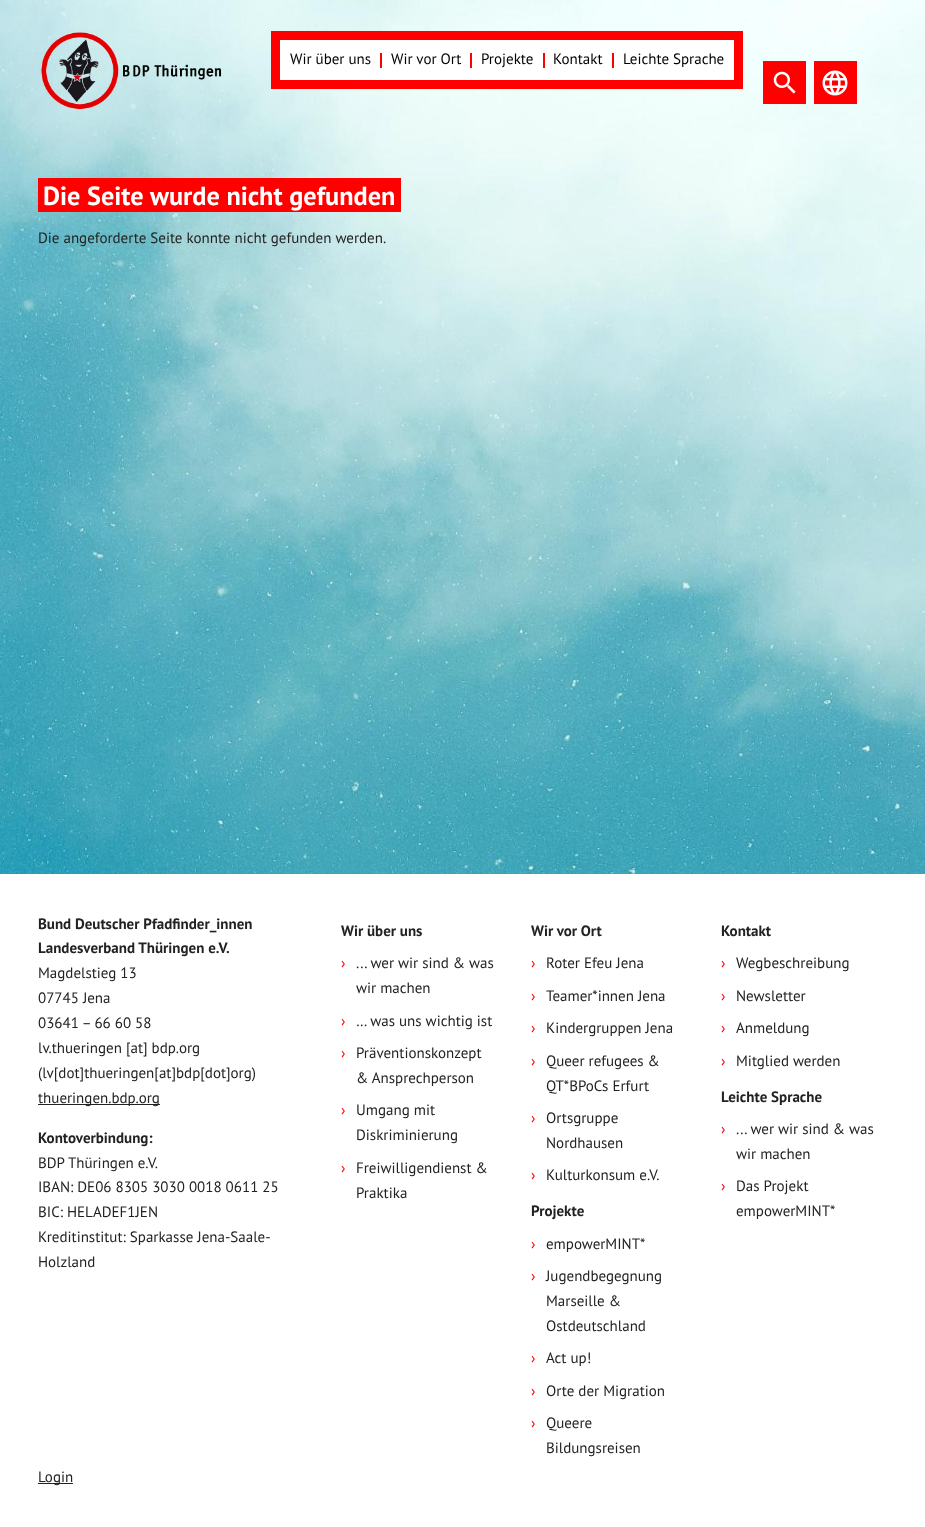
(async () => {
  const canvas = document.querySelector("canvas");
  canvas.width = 925;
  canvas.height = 1527;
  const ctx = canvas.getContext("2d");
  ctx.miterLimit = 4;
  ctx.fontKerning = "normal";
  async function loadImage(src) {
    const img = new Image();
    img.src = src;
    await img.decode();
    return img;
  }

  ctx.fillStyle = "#ffffff";
  ctx.fillRect(0, 0, 925, 1527);
  ctx.drawImage(await loadImage("img/1.png"), 0, 0, 925, 874);
  ctx.drawImage(await loadImage("img/2.png"), 41, 32, 181, 77);
  ctx.beginPath();
  ctx.rect(275.5, 35.5, 463, 49);
  ctx.fill();
  ctx.strokeStyle = "#ff0000";
  ctx.lineWidth = 9;
  ctx.stroke();
  for (const [x, y, w, h, color] of [
    [380, 53, 2, 15, "#ff0000"],
    [470, 53, 2, 15, "#ff0000"],
    [543, 53, 2, 15, "#ff0000"],
    [612, 53, 2, 15, "#ff0000"],
    [763, 61, 43, 43, "#ff0000"],
  ]) {
    ctx.fillStyle = color;
    ctx.fillRect(x, y, w, h);
  }
  ctx.drawImage(await loadImage("img/3.png"), 773, 71, 23, 23);
  ctx.fillRect(814, 61, 43, 43);
  ctx.drawImage(await loadImage("img/4.png"), 822, 70, 26, 26);
  for (const [x, y, w, h, color] of [
    [38, 178, 5, 34, "#ff0000"],
    [43, 178, 358, 34, "#ff0000"],
    [38, 1104, 122, 1, "#222222"],
    [38, 1483, 35, 1, "#222222"],
  ]) {
    ctx.fillStyle = color;
    ctx.fillRect(x, y, w, h);
  }
  ctx.font = "15px PT Sans";
  ctx.fillStyle = "#000000";
  for (const [text, x, y] of [
    ["Wir über uns", 290, 64],
    ["Wir vor Ort", 391, 64],
    ["Projekte", 481, 64],
    ["Kontakt", 553, 64],
    ["Leichte Sprache", 623, 64],
  ]) {
    ctx.fillText(text, x, y);
  }
  ctx.font = "bold 26.25px PT Sans";
  ctx.fillStyle = "#ffffff";
  ctx.fillText("Die Seite wurde nicht gefunden", 43, 205);
  ctx.font = "15px PT Sans";
  ctx.fillStyle = "#222222";
  ctx.fillText("Die angeforderte Seite konnte nicht gefunden werden.", 38, 243);
  ctx.font = "bold 15px PT Sans";
  ctx.fillText("Bund Deutscher Pfadfinder_innen", 38, 929);
  ctx.fillText("Landesverband Thüringen e.V.", 38, 953);
  ctx.font = "15px PT Sans";
  for (const [text, x, y] of [
    ["Magdelstieg 13", 38, 978],
    ["07745 Jena", 38, 1003],
    ["03641 – 66 60 58", 38, 1028],
    ["lv.thueringen [at] bdp.org", 38, 1053],
    ["(lv[dot]thueringen[at]bdp[dot]org)", 38, 1078],
    ["thueringen.bdp.org", 38, 1103],
  ]) {
    ctx.fillText(text, x, y);
  }
  ctx.font = "bold 15px PT Sans";
  ctx.fillText("Kontoverbindung:", 38, 1143);
  ctx.font = "15px PT Sans";
  for (const [text, x, y] of [
    ["BDP Thüringen e.V.", 38, 1168],
    ["IBAN: DE06 8305 3030 0018 0611 25", 38, 1192],
    ["BIC: HELADEF1JEN", 38, 1217],
    ["Kreditinstitut: Sparkasse Jena-Saale-", 38, 1242],
    ["Holzland", 38, 1267],
  ]) {
    ctx.fillText(text, x, y);
  }
  ctx.font = "bold 15px PT Sans";
  ctx.fillText("Wir über uns", 341, 936);
  ctx.font = "15px PT Sans";
  ctx.fillStyle = "#ff0000";
  ctx.fillText("›", 341, 968);
  ctx.fillStyle = "#222222";
  ctx.fillText("... wer wir sind & was", 356, 968);
  ctx.fillText("wir machen", 356, 993);
  ctx.fillStyle = "#ff0000";
  ctx.fillText("›", 341, 1026);
  ctx.fillStyle = "#222222";
  ctx.fillText("… was uns wichtig ist", 356, 1026);
  ctx.fillStyle = "#ff0000";
  ctx.fillText("›", 341, 1058);
  ctx.fillStyle = "#222222";
  ctx.fillText("Präventionskonzept", 356, 1058);
  ctx.fillText("& Ansprechperson", 356, 1083);
  ctx.fillStyle = "#ff0000";
  ctx.fillText("›", 341, 1115);
  ctx.fillStyle = "#222222";
  ctx.fillText("Umgang mit", 356, 1115);
  ctx.fillText("Diskriminierung", 356, 1140);
  ctx.fillStyle = "#ff0000";
  ctx.fillText("›", 341, 1173);
  ctx.fillStyle = "#222222";
  ctx.fillText("Freiwilligendienst &", 356, 1173);
  ctx.fillText("Praktika", 356, 1198);
  ctx.font = "bold 15px PT Sans";
  ctx.fillText("Wir vor Ort", 531, 936);
  ctx.font = "15px PT Sans";
  ctx.fillStyle = "#ff0000";
  ctx.fillText("›", 531, 968);
  ctx.fillStyle = "#222222";
  ctx.fillText("Roter Efeu Jena", 546, 968);
  ctx.fillStyle = "#ff0000";
  ctx.fillText("›", 531, 1001);
  ctx.fillStyle = "#222222";
  ctx.fillText("Teamer*innen Jena", 546, 1001);
  ctx.fillStyle = "#ff0000";
  ctx.fillText("›", 531, 1033);
  ctx.fillStyle = "#222222";
  ctx.fillText("Kindergruppen Jena", 546, 1033);
  ctx.fillStyle = "#ff0000";
  ctx.fillText("›", 531, 1066);
  ctx.fillStyle = "#222222";
  ctx.fillText("Queer refugees &", 546, 1066);
  ctx.fillText("QT*BPoCs Erfurt", 546, 1091);
  ctx.fillStyle = "#ff0000";
  ctx.fillText("›", 531, 1123);
  ctx.fillStyle = "#222222";
  ctx.fillText("Ortsgruppe", 546, 1123);
  ctx.fillText("Nordhausen", 546, 1148);
  ctx.fillStyle = "#ff0000";
  ctx.fillText("›", 531, 1180);
  ctx.fillStyle = "#222222";
  ctx.fillText("Kulturkonsum e.V.", 546, 1180);
  ctx.font = "bold 15px PT Sans";
  ctx.fillText("Kontakt", 721, 936);
  ctx.font = "15px PT Sans";
  ctx.fillStyle = "#ff0000";
  ctx.fillText("›", 721, 968);
  ctx.fillStyle = "#222222";
  ctx.fillText("Wegbeschreibung", 736, 968);
  ctx.fillStyle = "#ff0000";
  ctx.fillText("›", 721, 1001);
  ctx.fillStyle = "#222222";
  ctx.fillText("Newsletter", 736, 1001);
  ctx.fillStyle = "#ff0000";
  ctx.fillText("›", 721, 1033);
  ctx.fillStyle = "#222222";
  ctx.fillText("Anmeldung", 736, 1033);
  ctx.fillStyle = "#ff0000";
  ctx.fillText("›", 721, 1066);
  ctx.fillStyle = "#222222";
  ctx.fillText("Mitglied werden", 736, 1066);
  ctx.font = "bold 15px PT Sans";
  ctx.fillText("Leichte Sprache", 721, 1102);
  ctx.font = "15px PT Sans";
  ctx.fillStyle = "#ff0000";
  ctx.fillText("›", 721, 1134);
  ctx.fillStyle = "#222222";
  ctx.fillText("... wer wir sind & was", 736, 1134);
  ctx.fillText("wir machen", 736, 1159);
  ctx.fillStyle = "#ff0000";
  ctx.fillText("›", 721, 1191);
  ctx.fillStyle = "#222222";
  ctx.fillText("Das Projekt", 736, 1191);
  ctx.fillText("empowerMINT*", 736, 1216);
  ctx.font = "bold 15px PT Sans";
  ctx.fillText("Projekte", 531, 1216);
  ctx.font = "15px PT Sans";
  ctx.fillStyle = "#ff0000";
  ctx.fillText("›", 531, 1249);
  ctx.fillStyle = "#222222";
  ctx.fillText("empowerMINT*", 546, 1249);
  ctx.fillStyle = "#ff0000";
  ctx.fillText("›", 531, 1281);
  ctx.fillStyle = "#222222";
  for (const [text, x, y] of [
    ["Jugendbegegnung", 546, 1281],
    ["Marseille &", 546, 1306],
    ["Ostdeutschland", 546, 1331],
  ]) {
    ctx.fillText(text, x, y);
  }
  ctx.fillStyle = "#ff0000";
  ctx.fillText("›", 531, 1363);
  ctx.fillStyle = "#222222";
  ctx.fillText("Act up!", 546, 1363);
  ctx.fillStyle = "#ff0000";
  ctx.fillText("›", 531, 1396);
  ctx.fillStyle = "#222222";
  ctx.fillText("Orte der Migration", 546, 1396);
  ctx.fillStyle = "#ff0000";
  ctx.fillText("›", 531, 1428);
  ctx.fillStyle = "#222222";
  for (const [text, x, y] of [
    ["Queere", 546, 1428],
    ["Bildungsreisen", 546, 1453],
    ["Login", 38, 1482],
  ]) {
    ctx.fillText(text, x, y);
  }
})();
